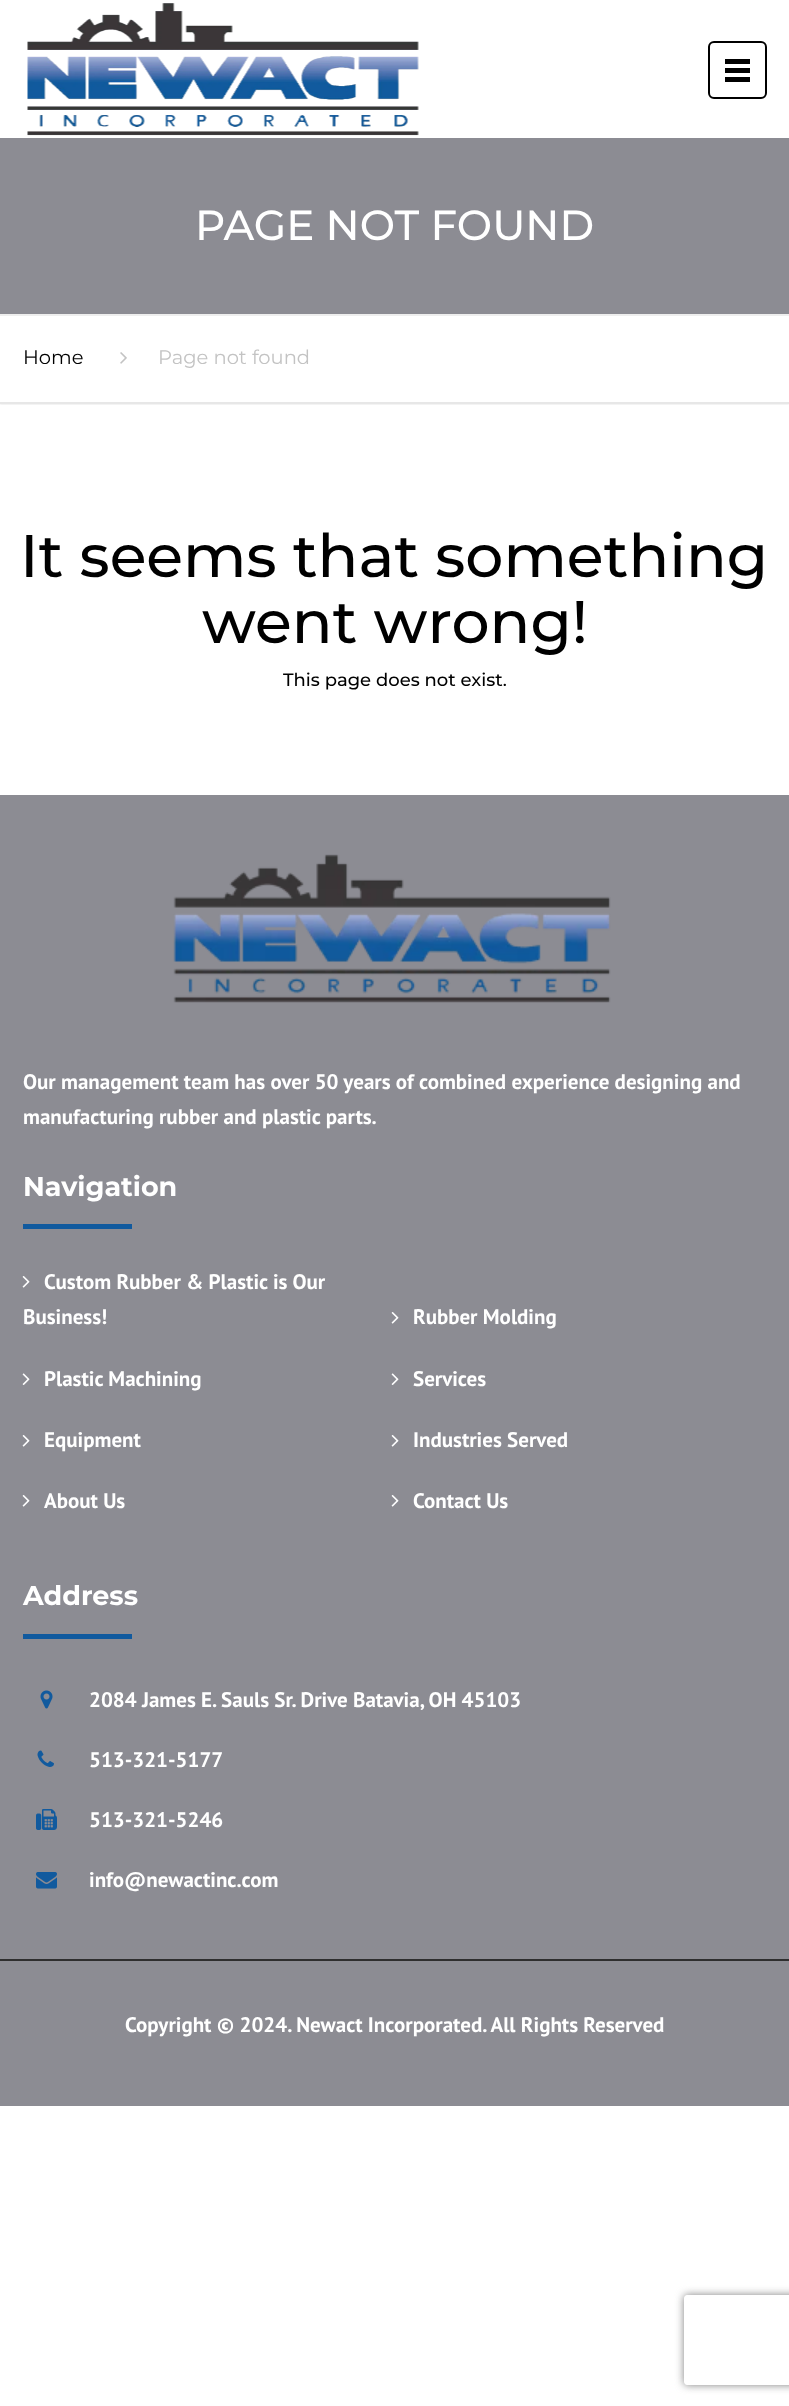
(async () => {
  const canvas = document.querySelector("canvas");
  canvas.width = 789;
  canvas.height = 2406;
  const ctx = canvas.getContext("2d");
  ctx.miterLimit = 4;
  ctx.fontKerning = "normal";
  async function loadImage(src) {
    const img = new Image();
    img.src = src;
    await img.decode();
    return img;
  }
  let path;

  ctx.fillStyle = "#ffffff";
  ctx.fillRect(0, 0, 789, 2406);
  ctx.drawImage(await loadImage("img/1.png"), 27, 3, 392, 133);
  ctx.beginPath();
  ctx.roundRect(709, 42, 57, 56, 5);
  ctx.strokeStyle = "#000000";
  ctx.lineWidth = 2;
  ctx.stroke();
  for (const [x, y, w, h, color] of [
    [725, 59, 25, 5, "#000000"],
    [725, 68, 25, 5, "#000000"],
    [725, 77, 25, 5, "#000000"],
  ]) {
    ctx.fillStyle = color;
    ctx.fillRect(x, y, w, h);
  }
  ctx.save();
  ctx.beginPath();
  ctx.rect(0, 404, 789, 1);
  ctx.clip();
  ctx.fillStyle = "rgba(0, 0, 0, 0.14)";
  ctx.filter = "blur(1px)";
  ctx.beginPath();
  ctx.rect(0, 315, 789, 89);
  ctx.fill();
  ctx.filter = "none";
  ctx.restore();
  for (const [x, y, w, h, color] of [
    [0, 138, 789, 176, "#8c8c93"],
    [0, 314, 789, 2, "#eeeeee"],
    [0, 402, 789, 2, "#e7e7e7"],
  ]) {
    ctx.fillStyle = color;
    ctx.fillRect(x, y, w, h);
  }
  ctx.drawImage(await loadImage("img/2.png"), 120, 352, 7, 12);
  ctx.fillStyle = "#8c8c93";
  ctx.fillRect(0, 795, 789, 1311);
  ctx.drawImage(await loadImage("img/3.png"), 173, 854, 438, 149);
  ctx.fillStyle = "#115a9e";
  ctx.fillRect(23, 1224, 109, 5);
  ctx.drawImage(await loadImage("img/4.png"), 22, 1276, 8, 12);
  ctx.drawImage(await loadImage("img/4.png"), 391, 1312, 8, 12);
  ctx.drawImage(await loadImage("img/5.png"), 22, 1373, 8, 12);
  ctx.drawImage(await loadImage("img/5.png"), 391, 1373, 8, 12);
  ctx.drawImage(await loadImage("img/4.png"), 22, 1435, 8, 12);
  ctx.drawImage(await loadImage("img/4.png"), 391, 1435, 8, 12);
  ctx.drawImage(await loadImage("img/4.png"), 22, 1495, 8, 12);
  ctx.drawImage(await loadImage("img/4.png"), 391, 1495, 8, 12);
  ctx.fillRect(23, 1634, 109, 5);
  ctx.drawImage(await loadImage("img/6.png"), 40, 1690, 13, 19);
  ctx.drawImage(await loadImage("img/7.png"), 37, 1750, 17, 17);
  ctx.drawImage(await loadImage("img/8.png"), 36, 1809, 21, 21);
  ctx.drawImage(await loadImage("img/9.png"), 36, 1872, 21, 17);
  ctx.fillStyle = "#2e2e2e";
  ctx.fillRect(0, 1959, 789, 2);
  ctx.save();
  path = new Path2D("M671 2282H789V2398H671ZM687 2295H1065C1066.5 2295 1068 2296.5 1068 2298V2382C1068 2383.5 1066.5 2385 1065 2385H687C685.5 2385 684 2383.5 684 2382V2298C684 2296.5 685.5 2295 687 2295Z");
  ctx.clip(path, "evenodd");
  ctx.fillStyle = "#808080";
  ctx.filter = "blur(4px)";
  ctx.beginPath();
  ctx.roundRect(684, 2295, 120, 90, 3);
  ctx.fill();
  ctx.filter = "none";
  ctx.restore();
  ctx.font = "500 42px Montserrat";
  ctx.fillStyle = "#ffffff";
  ctx.fillText("PAGE NOT FOUND", 195, 240);
  ctx.font = "19.5px Montserrat";
  ctx.fillStyle = "#000000";
  ctx.fillText("Home", 23, 364);
  ctx.fillStyle = "#c3c3c3";
  ctx.fillText("Page not found", 158, 364);
  ctx.font = "500 60px Montserrat";
  ctx.fillStyle = "#000000";
  ctx.fillText("It seems that something", 20, 577);
  ctx.fillText("went wrong!", 202, 643);
  ctx.font = "500 18px Montserrat";
  ctx.fillText("This page does not exist.", 283, 686);
  ctx.font = "bold 21px PT Sans";
  ctx.fillStyle = "#ffffff";
  ctx.fillText("Our management team has over 50 years of combined experience designing and", 23, 1089);
  ctx.fillText("manufacturing rubber and plastic parts.", 23, 1124);
  ctx.font = "bold 27px Montserrat";
  ctx.fillText("Navigation", 23, 1196);
  ctx.font = "bold 21px PT Sans";
  for (const [text, x, y] of [
    ["Custom Rubber & Plastic is Our", 44, 1289],
    ["Business!", 23, 1324],
    ["Rubber Molding", 413, 1324],
    ["Plastic Machining", 44, 1386],
    ["Services", 413, 1386],
    ["Equipment", 44, 1447],
    ["Industries Served", 413, 1447],
    ["About Us", 44, 1508],
    ["Contact Us", 413, 1508],
  ]) {
    ctx.fillText(text, x, y);
  }
  ctx.font = "bold 27px Montserrat";
  ctx.fillText("Address", 23, 1605);
  ctx.font = "bold 21px PT Sans";
  for (const [text, x, y] of [
    ["2084 James E. Sauls Sr. Drive Batavia, OH 45103", 89, 1707],
    ["513-321-5177", 89, 1767],
    ["513-321-5246", 89, 1827],
    ["info@newactinc.com", 89, 1887],
    ["Copyright © 2024. Newact Incorporated. All Rights Reserved", 125, 2032],
  ]) {
    ctx.fillText(text, x, y);
  }
})();
